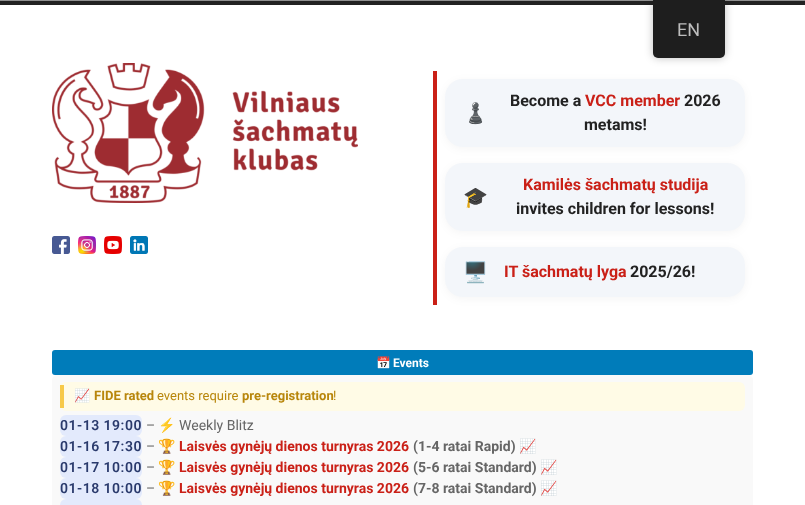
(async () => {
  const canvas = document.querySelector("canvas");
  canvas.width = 805;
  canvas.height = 505;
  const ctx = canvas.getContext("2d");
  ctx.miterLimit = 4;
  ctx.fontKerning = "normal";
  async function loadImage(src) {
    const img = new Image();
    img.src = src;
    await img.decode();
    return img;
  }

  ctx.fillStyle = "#ffffff";
  ctx.fillRect(0, 0, 805, 505);
  ctx.fillStyle = "#222222";
  ctx.fillRect(0, 1, 805, 4);
  ctx.fillStyle = "#919191";
  ctx.fillRect(0, 0, 805, 1);
  ctx.fillStyle = "rgba(0, 0, 0, 0.25)";
  ctx.filter = "blur(4px)";
  ctx.beginPath();
  ctx.roundRect(653, 0, 72, 58, 5);
  ctx.fill();
  ctx.filter = "none";
  ctx.fillStyle = "#1e1e1e";
  ctx.beginPath();
  ctx.roundRect(653, 0, 72, 58, [0, 0, 5, 5]);
  ctx.fill();
  ctx.drawImage(await loadImage("img/1.png"), 52, 63, 306, 140);
  ctx.drawImage(await loadImage("img/2.png"), 52, 236, 18, 18);
  ctx.drawImage(await loadImage("img/3.png"), 78, 236, 18, 18);
  ctx.drawImage(await loadImage("img/4.png"), 104, 236, 18, 18);
  ctx.drawImage(await loadImage("img/5.png"), 130, 236, 18, 18);
  ctx.fillStyle = "#ca2017";
  ctx.fillRect(433, 71, 4, 234);
  ctx.fillStyle = "rgba(0, 0, 0, 0.04)";
  ctx.filter = "blur(4px)";
  ctx.beginPath();
  ctx.roundRect(445, 81, 300, 68, 18);
  ctx.fill();
  ctx.filter = "none";
  ctx.fillStyle = "#f3f6fa";
  ctx.beginPath();
  ctx.roundRect(445, 79, 300, 68, 18);
  ctx.fill();
  ctx.fillStyle = "rgba(0, 0, 0, 0.04)";
  ctx.filter = "blur(4px)";
  ctx.beginPath();
  ctx.roundRect(445, 165, 300, 68, 18);
  ctx.fill();
  ctx.filter = "none";
  ctx.fillStyle = "#f3f6fa";
  ctx.beginPath();
  ctx.roundRect(445, 163, 300, 68, 18);
  ctx.fill();
  ctx.fillStyle = "rgba(0, 0, 0, 0.04)";
  ctx.filter = "blur(4px)";
  ctx.beginPath();
  ctx.roundRect(445, 249, 300, 50, 18);
  ctx.fill();
  ctx.filter = "none";
  ctx.fillStyle = "#f3f6fa";
  ctx.beginPath();
  ctx.roundRect(445, 247, 300, 50, 18);
  ctx.fill();
  ctx.fillStyle = "#007cba";
  ctx.beginPath();
  ctx.roundRect(52, 350, 701, 25, 3);
  ctx.fill();
  ctx.fillStyle = "#f9f9f9";
  ctx.beginPath();
  ctx.roundRect(52, 375, 701, 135, 5);
  ctx.fill();
  ctx.fillStyle = "#fffbe6";
  ctx.beginPath();
  ctx.roundRect(60, 382, 685, 29, 6);
  ctx.fill();
  ctx.fillStyle = "#f7c948";
  ctx.fillRect(60, 385, 4, 23);
  ctx.fillStyle = "#e3eafc";
  ctx.beginPath();
  ctx.roundRect(60, 415, 82, 21, 6);
  ctx.fill();
  ctx.beginPath();
  ctx.roundRect(60, 436, 82, 21, 6);
  ctx.fill();
  ctx.beginPath();
  ctx.roundRect(60, 457, 82, 21, 6);
  ctx.fill();
  ctx.beginPath();
  ctx.roundRect(60, 478, 82, 21, 6);
  ctx.fill();
  ctx.beginPath();
  ctx.roundRect(60, 499, 82, 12, 6);
  ctx.fill();
  ctx.font = "18px Roboto";
  ctx.fillStyle = "#bdbdbd";
  ctx.fillText("EN", 677, 36);
  ctx.font = "20px Noto Color Emoji";
  ctx.fillStyle = "#222222";
  ctx.fillText("♟️", 463, 120);
  ctx.font = "bold 16px Roboto";
  ctx.fillText("Become a", 510, 106);
  ctx.fillStyle = "#ca2017";
  ctx.fillText("VCC member", 585, 106);
  ctx.fillStyle = "#222222";
  ctx.fillText("2026", 684, 106);
  ctx.fillText("metams!", 584, 130);
  ctx.font = "20px Noto Color Emoji";
  ctx.fillText("🎓", 463, 204);
  ctx.font = "bold 16px Roboto";
  ctx.fillStyle = "#ca2017";
  ctx.fillText("Kamilės šachmatų studija", 523, 190);
  ctx.fillStyle = "#222222";
  ctx.fillText("invites children for lessons!", 516, 214);
  ctx.font = "20px Noto Color Emoji";
  ctx.fillText("🖥️", 463, 279);
  ctx.font = "bold 16px Roboto";
  ctx.fillStyle = "#ca2017";
  ctx.fillText("IT šachmatų lyga", 504, 277);
  ctx.fillStyle = "#222222";
  ctx.fillText("2025/26!", 630, 277);
  ctx.font = "bold 12px Noto Color Emoji";
  ctx.fillStyle = "#ffffff";
  ctx.fillText("📅", 376, 367);
  ctx.font = "bold 12px Roboto";
  ctx.fillText("Events", 393, 367);
  ctx.font = "13px Noto Color Emoji";
  ctx.fillStyle = "#b8860b";
  ctx.fillText("📈", 74, 400);
  ctx.font = "bold 13px Roboto";
  ctx.fillText("FIDE rated", 94, 400);
  ctx.font = "13px Roboto";
  ctx.fillText("events require", 157, 400);
  ctx.font = "bold 13px Roboto";
  ctx.fillText("pre-registration", 242, 400);
  ctx.font = "13px Roboto";
  ctx.fillText("!", 333, 400);
  ctx.letterSpacing = "0.5px";
  ctx.font = "600 14px Roboto";
  ctx.fillStyle = "#2a3a6c";
  ctx.fillText("01-13 19:00", 60, 430);
  ctx.letterSpacing = "0px";
  ctx.font = "14px Roboto";
  ctx.fillStyle = "#666666";
  ctx.fillText("–", 146, 430);
  ctx.font = "14px Noto Color Emoji";
  ctx.fillText("⚡", 158, 430);
  ctx.font = "14px Roboto";
  ctx.fillText("Weekly Blitz", 179, 430);
  ctx.letterSpacing = "0.5px";
  ctx.font = "600 14px Roboto";
  ctx.fillStyle = "#2a3a6c";
  ctx.fillText("01-16 17:30", 60, 451);
  ctx.letterSpacing = "0px";
  ctx.font = "14px Roboto";
  ctx.fillStyle = "#666666";
  ctx.fillText("–", 146, 451);
  ctx.font = "14px Noto Color Emoji";
  ctx.fillText("🏆", 158, 451);
  ctx.font = "bold 14px Roboto";
  ctx.fillStyle = "#ca2017";
  ctx.fillText("Laisvės gynėjų dienos turnyras 2026", 179, 451);
  ctx.fillStyle = "#666666";
  ctx.fillText("(1-4 ratai Rapid)", 413, 451);
  ctx.font = "14px Noto Color Emoji";
  ctx.fillText("📈", 519, 451);
  ctx.letterSpacing = "0.5px";
  ctx.font = "600 14px Roboto";
  ctx.fillStyle = "#2a3a6c";
  ctx.fillText("01-17 10:00", 60, 472);
  ctx.letterSpacing = "0px";
  ctx.font = "14px Roboto";
  ctx.fillStyle = "#666666";
  ctx.fillText("–", 146, 472);
  ctx.font = "14px Noto Color Emoji";
  ctx.fillText("🏆", 158, 472);
  ctx.font = "bold 14px Roboto";
  ctx.fillStyle = "#ca2017";
  ctx.fillText("Laisvės gynėjų dienos turnyras 2026", 179, 472);
  ctx.fillStyle = "#666666";
  ctx.fillText("(5-6 ratai Standard)", 413, 472);
  ctx.font = "14px Noto Color Emoji";
  ctx.fillText("📈", 540, 472);
  ctx.letterSpacing = "0.5px";
  ctx.font = "600 14px Roboto";
  ctx.fillStyle = "#2a3a6c";
  ctx.fillText("01-18 10:00", 60, 493);
  ctx.letterSpacing = "0px";
  ctx.font = "14px Roboto";
  ctx.fillStyle = "#666666";
  ctx.fillText("–", 146, 493);
  ctx.font = "14px Noto Color Emoji";
  ctx.fillText("🏆", 158, 493);
  ctx.font = "bold 14px Roboto";
  ctx.fillStyle = "#ca2017";
  ctx.fillText("Laisvės gynėjų dienos turnyras 2026", 179, 493);
  ctx.fillStyle = "#666666";
  ctx.fillText("(7-8 ratai Standard)", 413, 493);
  ctx.font = "14px Noto Color Emoji";
  ctx.fillText("📈", 540, 493);
})();
